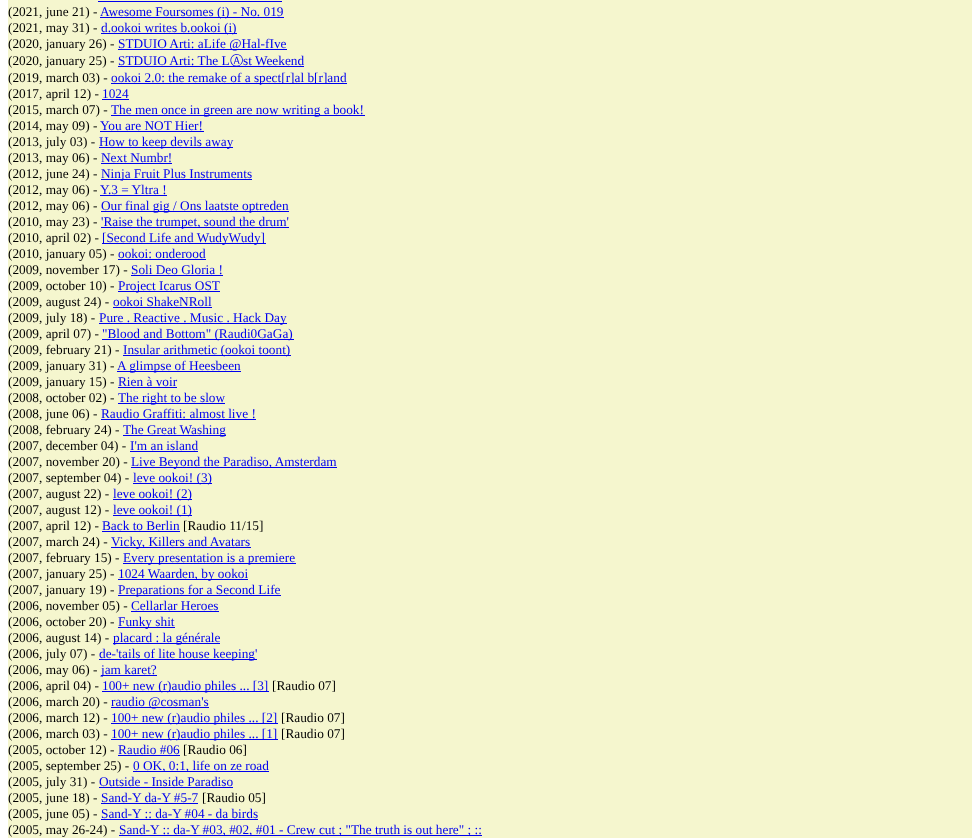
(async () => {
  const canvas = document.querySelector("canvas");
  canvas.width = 980;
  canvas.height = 838;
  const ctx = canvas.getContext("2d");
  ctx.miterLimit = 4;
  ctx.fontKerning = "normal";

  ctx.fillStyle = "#ffffff";
  ctx.fillRect(0, 0, 980, 838);
  for (const [x, y, w, h, color] of [
    [8, 0, 964, 838, "#f5f6ce"],
    [98, 1, 184, 1, "#0000ee"],
    [100, 17, 184, 1, "#0000ee"],
    [101, 33, 136, 1, "#0000ee"],
    [118, 49, 169, 1, "#0000ee"],
    [118, 66, 186, 1, "#0000ee"],
    [111, 83, 236, 1, "#0000ee"],
    [102, 99, 27, 1, "#0000ee"],
    [111, 115, 254, 1, "#0000ee"],
    [100, 131, 104, 1, "#0000ee"],
    [99, 147, 134, 1, "#0000ee"],
    [101, 163, 71, 1, "#0000ee"],
    [101, 179, 151, 1, "#0000ee"],
    [100, 195, 67, 1, "#0000ee"],
    [101, 211, 188, 1, "#0000ee"],
    [101, 227, 188, 1, "#0000ee"],
    [102, 243, 164, 1, "#0000ee"],
    [118, 259, 88, 1, "#0000ee"],
    [131, 275, 92, 1, "#0000ee"],
    [118, 291, 102, 1, "#0000ee"],
    [113, 307, 99, 1, "#0000ee"],
    [99, 323, 188, 1, "#0000ee"],
    [102, 339, 192, 1, "#0000ee"],
    [123, 355, 168, 1, "#0000ee"],
    [117, 371, 124, 1, "#0000ee"],
    [118, 387, 59, 1, "#0000ee"],
    [118, 403, 107, 1, "#0000ee"],
    [101, 419, 155, 1, "#0000ee"],
    [123, 435, 103, 1, "#0000ee"],
    [130, 451, 68, 1, "#0000ee"],
    [131, 467, 206, 1, "#0000ee"],
    [133, 483, 79, 1, "#0000ee"],
    [113, 499, 79, 1, "#0000ee"],
    [113, 515, 79, 1, "#0000ee"],
    [102, 531, 78, 1, "#0000ee"],
    [111, 547, 140, 1, "#0000ee"],
    [123, 563, 173, 1, "#0000ee"],
    [118, 579, 130, 1, "#0000ee"],
    [118, 595, 163, 1, "#0000ee"],
    [131, 611, 88, 1, "#0000ee"],
    [118, 627, 57, 1, "#0000ee"],
    [113, 643, 107, 1, "#0000ee"],
    [99, 659, 158, 1, "#0000ee"],
    [101, 675, 56, 1, "#0000ee"],
    [102, 691, 167, 1, "#0000ee"],
    [111, 707, 98, 1, "#0000ee"],
    [111, 723, 167, 1, "#0000ee"],
    [111, 739, 167, 1, "#0000ee"],
    [118, 755, 62, 1, "#0000ee"],
    [133, 771, 136, 1, "#0000ee"],
    [99, 787, 134, 1, "#0000ee"],
    [101, 803, 97, 1, "#0000ee"],
    [101, 819, 157, 1, "#0000ee"],
    [119, 835, 363, 1, "#0000ee"],
  ]) {
    ctx.fillStyle = color;
    ctx.fillRect(x, y, w, h);
  }
  ctx.font = "13.3px Liberation Serif";
  ctx.fillStyle = "#000000";
  ctx.fillText("(2021, june 21) -", 8, 16);
  ctx.fillStyle = "#0000ee";
  ctx.fillText("Awesome Foursomes (i) - No. 019", 100, 16);
  ctx.fillStyle = "#000000";
  ctx.fillText("(2021, may 31) -", 8, 32);
  ctx.fillStyle = "#0000ee";
  ctx.fillText("d.ookoi writes b.ookoi (i)", 101, 32);
  ctx.fillStyle = "#000000";
  ctx.fillText("(2020, january 26) -", 8, 48);
  ctx.fillStyle = "#0000ee";
  ctx.fillText("STDUIO Arti: aLife @Hal-fIve", 118, 48);
  ctx.fillStyle = "#000000";
  ctx.fillText("(2020, january 25) -", 8, 65);
  ctx.fillStyle = "#0000ee";
  ctx.fillText("STDUIO Arti: The L", 118, 65);
  ctx.font = "500 13.3px WenQuanYi Zen Hei";
  ctx.fillText("Ⓐ", 230, 65);
  ctx.font = "13.3px Liberation Serif";
  ctx.fillText("st Weekend", 243, 65);
  ctx.fillStyle = "#000000";
  ctx.fillText("(2019, march 03) -", 8, 82);
  ctx.fillStyle = "#0000ee";
  ctx.fillText("ookoi 2.0: the remake of a spect[r]al b[r]and", 111, 82);
  ctx.fillStyle = "#000000";
  ctx.fillText("(2017, april 12) -", 8, 98);
  ctx.fillStyle = "#0000ee";
  ctx.fillText("1024", 102, 98);
  ctx.fillStyle = "#000000";
  ctx.fillText("(2015, march 07) -", 8, 114);
  ctx.fillStyle = "#0000ee";
  ctx.fillText("The men once in green are now writing a book!", 111, 114);
  ctx.fillStyle = "#000000";
  ctx.fillText("(2014, may 09) -", 8, 130);
  ctx.fillStyle = "#0000ee";
  ctx.fillText("You are NOT Hier!", 100, 130);
  ctx.fillStyle = "#000000";
  ctx.fillText("(2013, july 03) -", 8, 146);
  ctx.fillStyle = "#0000ee";
  ctx.fillText("How to keep devils away", 99, 146);
  ctx.fillStyle = "#000000";
  ctx.fillText("(2013, may 06) -", 8, 162);
  ctx.fillStyle = "#0000ee";
  ctx.fillText("Next Numbr!", 101, 162);
  ctx.fillStyle = "#000000";
  ctx.fillText("(2012, june 24) -", 8, 178);
  ctx.fillStyle = "#0000ee";
  ctx.fillText("Ninja Fruit Plus Instruments", 101, 178);
  ctx.fillStyle = "#000000";
  ctx.fillText("(2012, may 06) -", 8, 194);
  ctx.fillStyle = "#0000ee";
  ctx.fillText("Y.3 = Yltra !", 100, 194);
  ctx.fillStyle = "#000000";
  ctx.fillText("(2012, may 06) -", 8, 210);
  ctx.fillStyle = "#0000ee";
  ctx.fillText("Our final gig / Ons laatste optreden", 101, 210);
  ctx.fillStyle = "#000000";
  ctx.fillText("(2010, may 23) -", 8, 226);
  ctx.fillStyle = "#0000ee";
  ctx.fillText("'Raise the trumpet, sound the drum'", 101, 226);
  ctx.fillStyle = "#000000";
  ctx.fillText("(2010, april 02) -", 8, 242);
  ctx.fillStyle = "#0000ee";
  ctx.fillText("[Second Life and WudyWudy]", 102, 242);
  ctx.fillStyle = "#000000";
  ctx.fillText("(2010, january 05) -", 8, 258);
  ctx.fillStyle = "#0000ee";
  ctx.fillText("ookoi: onderood", 118, 258);
  ctx.fillStyle = "#000000";
  ctx.fillText("(2009, november 17) -", 8, 274);
  ctx.fillStyle = "#0000ee";
  ctx.fillText("Soli Deo Gloria !", 131, 274);
  ctx.fillStyle = "#000000";
  ctx.fillText("(2009, october 10) -", 8, 290);
  ctx.fillStyle = "#0000ee";
  ctx.fillText("Project Icarus OST", 118, 290);
  ctx.fillStyle = "#000000";
  ctx.fillText("(2009, august 24) -", 8, 306);
  ctx.fillStyle = "#0000ee";
  ctx.fillText("ookoi ShakeNRoll", 113, 306);
  ctx.fillStyle = "#000000";
  ctx.fillText("(2009, july 18) -", 8, 322);
  ctx.fillStyle = "#0000ee";
  ctx.fillText("Pure . Reactive . Music . Hack Day", 99, 322);
  ctx.fillStyle = "#000000";
  ctx.fillText("(2009, april 07) -", 8, 338);
  ctx.fillStyle = "#0000ee";
  ctx.fillText("\"Blood and Bottom\" (Raudi0GaGa)", 102, 338);
  ctx.fillStyle = "#000000";
  ctx.fillText("(2009, february 21) -", 8, 354);
  ctx.fillStyle = "#0000ee";
  ctx.fillText("Insular arithmetic (ookoi toont)", 123, 354);
  ctx.fillStyle = "#000000";
  ctx.fillText("(2009, january 31) -", 8, 370);
  ctx.fillStyle = "#0000ee";
  ctx.fillText("A glimpse of Heesbeen", 117, 370);
  ctx.fillStyle = "#000000";
  ctx.fillText("(2009, january 15) -", 8, 386);
  ctx.fillStyle = "#0000ee";
  ctx.fillText("Rien à voir", 118, 386);
  ctx.fillStyle = "#000000";
  ctx.fillText("(2008, october 02) -", 8, 402);
  ctx.fillStyle = "#0000ee";
  ctx.fillText("The right to be slow", 118, 402);
  ctx.fillStyle = "#000000";
  ctx.fillText("(2008, june 06) -", 8, 418);
  ctx.fillStyle = "#0000ee";
  ctx.fillText("Raudio Graffiti: almost live !", 101, 418);
  ctx.fillStyle = "#000000";
  ctx.fillText("(2008, february 24) -", 8, 434);
  ctx.fillStyle = "#0000ee";
  ctx.fillText("The Great Washing", 123, 434);
  ctx.fillStyle = "#000000";
  ctx.fillText("(2007, december 04) -", 8, 450);
  ctx.fillStyle = "#0000ee";
  ctx.fillText("I'm an island", 130, 450);
  ctx.fillStyle = "#000000";
  ctx.fillText("(2007, november 20) -", 8, 466);
  ctx.fillStyle = "#0000ee";
  ctx.fillText("Live Beyond the Paradiso, Amsterdam", 131, 466);
  ctx.fillStyle = "#000000";
  ctx.fillText("(2007, september 04) -", 8, 482);
  ctx.fillStyle = "#0000ee";
  ctx.fillText("leve ookoi! (3)", 133, 482);
  ctx.fillStyle = "#000000";
  ctx.fillText("(2007, august 22) -", 8, 498);
  ctx.fillStyle = "#0000ee";
  ctx.fillText("leve ookoi! (2)", 113, 498);
  ctx.fillStyle = "#000000";
  ctx.fillText("(2007, august 12) -", 8, 514);
  ctx.fillStyle = "#0000ee";
  ctx.fillText("leve ookoi! (1)", 113, 514);
  ctx.fillStyle = "#000000";
  ctx.fillText("(2007, april 12) -", 8, 530);
  ctx.fillStyle = "#0000ee";
  ctx.fillText("Back to Berlin", 102, 530);
  ctx.fillStyle = "#000000";
  ctx.fillText("[Raudio 11/15]", 183, 530);
  ctx.fillText("(2007, march 24) -", 8, 546);
  ctx.fillStyle = "#0000ee";
  ctx.fillText("Vicky, Killers and Avatars", 111, 546);
  ctx.fillStyle = "#000000";
  ctx.fillText("(2007, february 15) -", 8, 562);
  ctx.fillStyle = "#0000ee";
  ctx.fillText("Every presentation is a premiere", 123, 562);
  ctx.fillStyle = "#000000";
  ctx.fillText("(2007, january 25) -", 8, 578);
  ctx.fillStyle = "#0000ee";
  ctx.fillText("1024 Waarden, by ookoi", 118, 578);
  ctx.fillStyle = "#000000";
  ctx.fillText("(2007, january 19) -", 8, 594);
  ctx.fillStyle = "#0000ee";
  ctx.fillText("Preparations for a Second Life", 118, 594);
  ctx.fillStyle = "#000000";
  ctx.fillText("(2006, november 05) -", 8, 610);
  ctx.fillStyle = "#0000ee";
  ctx.fillText("Cellarlar Heroes", 131, 610);
  ctx.fillStyle = "#000000";
  ctx.fillText("(2006, october 20) -", 8, 626);
  ctx.fillStyle = "#0000ee";
  ctx.fillText("Funky shit", 118, 626);
  ctx.fillStyle = "#000000";
  ctx.fillText("(2006, august 14) -", 8, 642);
  ctx.fillStyle = "#0000ee";
  ctx.fillText("placard : la générale", 113, 642);
  ctx.fillStyle = "#000000";
  ctx.fillText("(2006, july 07) -", 8, 658);
  ctx.fillStyle = "#0000ee";
  ctx.fillText("de-'tails of lite house keeping'", 99, 658);
  ctx.fillStyle = "#000000";
  ctx.fillText("(2006, may 06) -", 8, 674);
  ctx.fillStyle = "#0000ee";
  ctx.fillText("jam karet?", 101, 674);
  ctx.fillStyle = "#000000";
  ctx.fillText("(2006, april 04) -", 8, 690);
  ctx.fillStyle = "#0000ee";
  ctx.fillText("100+ new (r)audio philes ... [3]", 102, 690);
  ctx.fillStyle = "#000000";
  ctx.fillText("[Raudio 07]", 272, 690);
  ctx.fillText("(2006, march 20) -", 8, 706);
  ctx.fillStyle = "#0000ee";
  ctx.fillText("raudio @cosman's", 111, 706);
  ctx.fillStyle = "#000000";
  ctx.fillText("(2006, march 12) -", 8, 722);
  ctx.fillStyle = "#0000ee";
  ctx.fillText("100+ new (r)audio philes ... [2]", 111, 722);
  ctx.fillStyle = "#000000";
  ctx.fillText("[Raudio 07]", 281, 722);
  ctx.fillText("(2006, march 03) -", 8, 738);
  ctx.fillStyle = "#0000ee";
  ctx.fillText("100+ new (r)audio philes ... [1]", 111, 738);
  ctx.fillStyle = "#000000";
  ctx.fillText("[Raudio 07]", 281, 738);
  ctx.fillText("(2005, october 12) -", 8, 754);
  ctx.fillStyle = "#0000ee";
  ctx.fillText("Raudio #06", 118, 754);
  ctx.fillStyle = "#000000";
  ctx.fillText("[Raudio 06]", 183, 754);
  ctx.fillText("(2005, september 25) -", 8, 770);
  ctx.fillStyle = "#0000ee";
  ctx.fillText("0 OK, 0:1, life on ze road", 133, 770);
  ctx.fillStyle = "#000000";
  ctx.fillText("(2005, july 31) -", 8, 786);
  ctx.fillStyle = "#0000ee";
  ctx.fillText("Outside - Inside Paradiso", 99, 786);
  ctx.fillStyle = "#000000";
  ctx.fillText("(2005, june 18) -", 8, 802);
  ctx.fillStyle = "#0000ee";
  ctx.fillText("Sand-Y da-Y #5-7", 101, 802);
  ctx.fillStyle = "#000000";
  ctx.fillText("[Raudio 05]", 202, 802);
  ctx.fillText("(2005, june 05) -", 8, 818);
  ctx.fillStyle = "#0000ee";
  ctx.fillText("Sand-Y :: da-Y #04 - da birds", 101, 818);
  ctx.fillStyle = "#000000";
  ctx.fillText("(2005, may 26-24) -", 8, 834);
  ctx.fillStyle = "#0000ee";
  ctx.fillText("Sand-Y :: da-Y #03, #02, #01 - Crew cut ; \"The truth is out here\" ; ::", 119, 834);
})();
